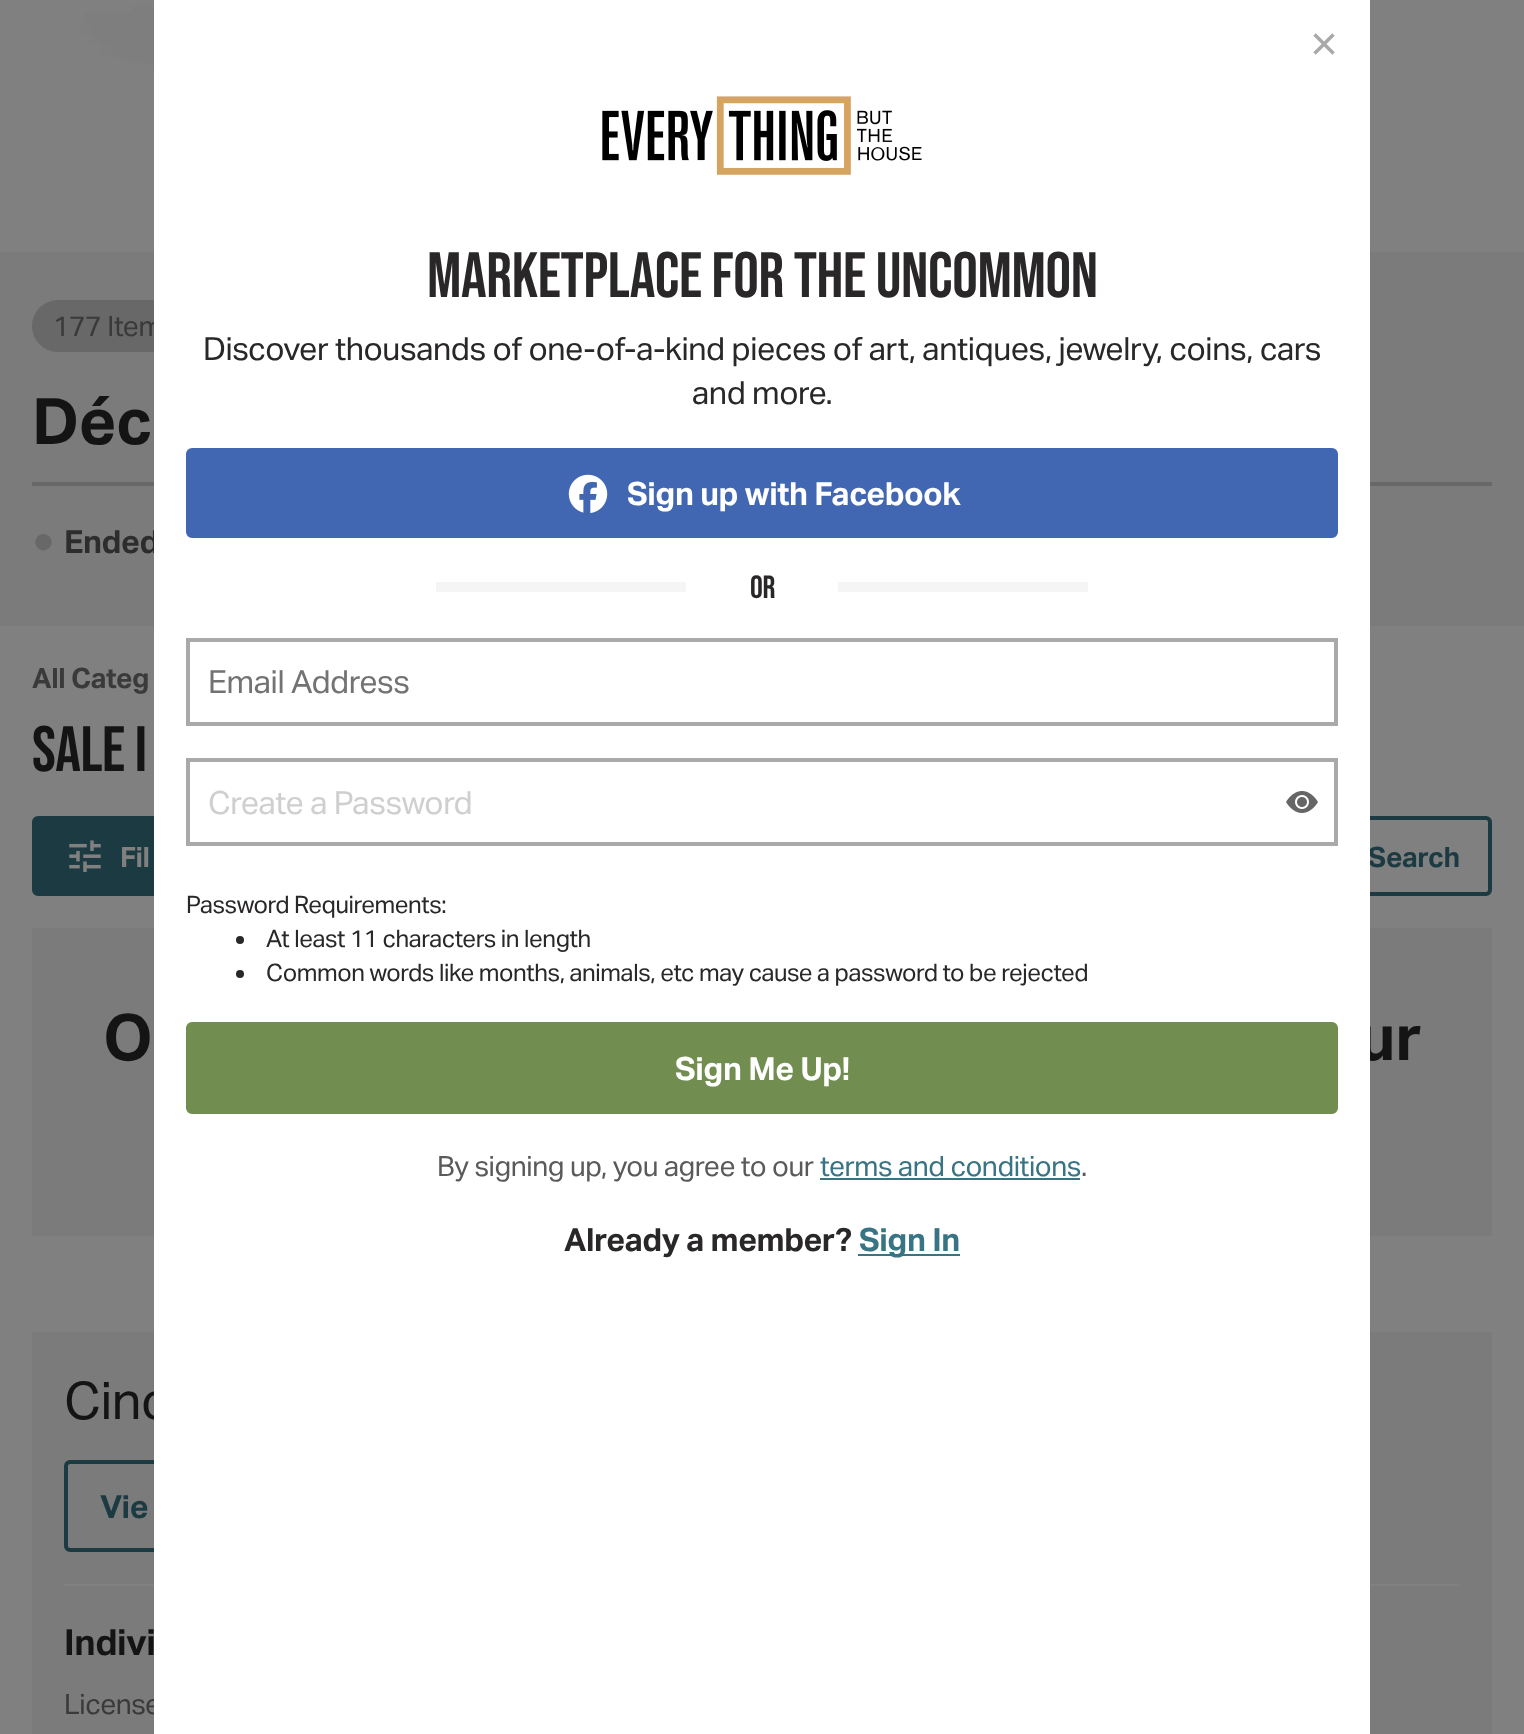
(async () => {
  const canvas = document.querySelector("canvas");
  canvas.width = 1524;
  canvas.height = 1734;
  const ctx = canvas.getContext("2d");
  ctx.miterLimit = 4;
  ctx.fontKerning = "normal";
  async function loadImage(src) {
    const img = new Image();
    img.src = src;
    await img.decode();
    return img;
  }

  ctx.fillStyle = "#808080";
  ctx.fillRect(0, 0, 1524, 1734);
  ctx.fillStyle = "#7b7b7b";
  ctx.fillRect(0, 252, 1524, 374);
  ctx.drawImage(await loadImage("img/4.png"), 0, 0, 1524, 252);
  ctx.fillStyle = "#686868";
  ctx.beginPath();
  ctx.roundRect(32, 300, 166, 52, 26);
  ctx.fill();
  ctx.fillRect(32, 482, 1460, 4);
  ctx.fillStyle = "#1c3a42";
  ctx.beginPath();
  ctx.roundRect(34, 818, 184, 76, 4);
  ctx.fill();
  ctx.strokeStyle = "#1c3a42";
  ctx.lineWidth = 4;
  ctx.stroke();
  ctx.drawImage(await loadImage("img/5.png"), 69, 840, 32, 32);
  ctx.beginPath();
  ctx.roundRect(1158, 818, 332, 76, 4);
  ctx.stroke();
  for (const [x, y, w, h, color] of [
    [32, 928, 1460, 308, "#7b7b7b"],
    [32, 1332, 1460, 402, "#7b7b7b"],
    [64, 1584, 1396, 2, "#808080"],
  ]) {
    ctx.fillStyle = color;
    ctx.fillRect(x, y, w, h);
  }
  ctx.beginPath();
  ctx.roundRect(66, 1462, 324, 88, 4);
  ctx.stroke();
  ctx.letterSpacing = "-0.4px";
  ctx.font = "28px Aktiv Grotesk";
  ctx.fillStyle = "#3a3a3a";
  ctx.fillText("177 Item", 53, 336);
  ctx.font = "bold 64px Aktiv Grotesk";
  ctx.fillStyle = "#151414";
  ctx.fillText("Déc", 32, 444);
  ctx.font = "bold 38px Liberation Sans";
  ctx.fillStyle = "#686868";
  ctx.fillText("●", 32, 553);
  ctx.font = "bold 32px Aktiv Grotesk";
  ctx.fillStyle = "#2d2d2d";
  ctx.fillText("Ended", 64, 553);
  ctx.font = "bold 28px Aktiv Grotesk";
  ctx.fillStyle = "#3a3a3a";
  ctx.fillText("All Categ", 32, 688);
  ctx.font = "64px Bebas Neue";
  ctx.fillStyle = "#151414";
  ctx.fillText("SALE I", 32, 771);
  ctx.font = "bold 28px Aktiv Grotesk";
  ctx.fillStyle = "#808080";
  ctx.fillText("Fil", 120, 867);
  ctx.fillStyle = "#1c3a42";
  ctx.fillText("Search", 1368, 867);
  ctx.font = "bold 64px Aktiv Grotesk";
  ctx.fillStyle = "#151414";
  ctx.fillText("O", 103, 1060);
  ctx.fillText("ur", 1358, 1060);
  ctx.font = "52px Aktiv Grotesk";
  ctx.fillText("Cinc", 64, 1419);
  ctx.font = "bold 32px Aktiv Grotesk";
  ctx.fillStyle = "#1c3a42";
  ctx.fillText("Vie", 100, 1518);
  ctx.font = "bold 36px Aktiv Grotesk";
  ctx.fillStyle = "#151414";
  ctx.fillText("Indivi", 64, 1655);
  ctx.font = "28px Aktiv Grotesk";
  ctx.fillStyle = "#3a3a3a";
  ctx.fillText("License", 64, 1714);
  ctx.fillStyle = "#ffffff";
  ctx.fillRect(154, 0, 1216, 1734);
  ctx.strokeStyle = "#a9a9a9";
  ctx.strokeRect(188, 760, 1148, 84);
  ctx.drawImage(await loadImage("img/3.png"), 1286, 791, 32, 22);
  ctx.fillStyle = "#718d50";
  ctx.beginPath();
  ctx.roundRect(188, 1024, 1148, 88, 4);
  ctx.fill();
  ctx.strokeStyle = "#718d50";
  ctx.stroke();
  ctx.font = "bold 32px Aktiv Grotesk";
  ctx.fillStyle = "#ffffff";
  ctx.fillText("Sign Me Up!", 675, 1080);
  ctx.font = "24px Aktiv Grotesk";
  ctx.fillStyle = "#292728";
  ctx.fillText("Common words like months, animals, etc may cause a password to be rejected", 266, 981);
  ctx.beginPath();
  ctx.arc(240, 974, 4, 0, Math.PI * 2);
  ctx.fill();
  ctx.fillText("At least 11 characters in length", 266, 947);
  ctx.beginPath();
  ctx.arc(240, 940, 4, 0, Math.PI * 2);
  ctx.fill();
  ctx.fillText("Password Requirements:", 186, 913);
  ctx.font = "32px Aktiv Grotesk";
  ctx.fillStyle = "#cfcfcf";
  ctx.fillText("Create a Password", 208, 814);
  ctx.strokeStyle = "#a9a9a9";
  ctx.strokeRect(188, 640, 1148, 84);
  ctx.fillStyle = "#747374";
  ctx.fillText("Email Address", 208, 693);
  ctx.fillStyle = "#f5f5f5";
  ctx.fillRect(838, 582, 250, 10);
  ctx.fillRect(436, 582, 250, 10);
  ctx.font = "32px Bebas Neue";
  ctx.fillStyle = "#292728";
  ctx.fillText("OR", 750, 598);
  ctx.fillStyle = "#4267b2";
  ctx.beginPath();
  ctx.roundRect(188, 450, 1148, 86, 4);
  ctx.fill();
  ctx.strokeStyle = "#4267b2";
  ctx.stroke();
  ctx.drawImage(await loadImage("img/2.png"), 568, 474, 40, 39);
  ctx.letterSpacing = "0px";
  ctx.font = "48px Liberation Sans";
  ctx.fillStyle = "#a9a9a9";
  ctx.fillText("×", 1310, 60);
  ctx.letterSpacing = "-0.4px";
  ctx.font = "bold 32px Aktiv Grotesk";
  ctx.fillStyle = "#ffffff";
  ctx.fillText("Sign up with Facebook", 627, 505);
  ctx.fillStyle = "#387483";
  ctx.fillRect(858, 1254, 102, 2);
  ctx.fillText("Sign In", 859, 1251);
  ctx.fillStyle = "#292728";
  ctx.fillText("Already a member?", 564, 1251);
  ctx.font = "28px Aktiv Grotesk";
  ctx.fillStyle = "#5a5a5a";
  ctx.fillText(".", 1081, 1176);
  ctx.fillStyle = "#387483";
  ctx.fillText("terms and conditions", 820, 1176);
  ctx.fillRect(820, 1178, 260, 2);
  ctx.fillStyle = "#5a5a5a";
  ctx.fillText("By signing up, you agree to our", 437, 1176);
  ctx.font = "32px Aktiv Grotesk";
  ctx.fillStyle = "#292728";
  ctx.fillText("and more.", 692, 404);
  ctx.fillText("Discover thousands of one-of-a-kind pieces of art, antiques, jewelry, coins, cars", 203, 360);
  ctx.font = "64px Bebas Neue";
  ctx.fillText("MARKETPLACE FOR THE UNCOMMON", 427, 297);
  ctx.drawImage(await loadImage("img/1.png"), 602, 96, 320, 79);
})();
